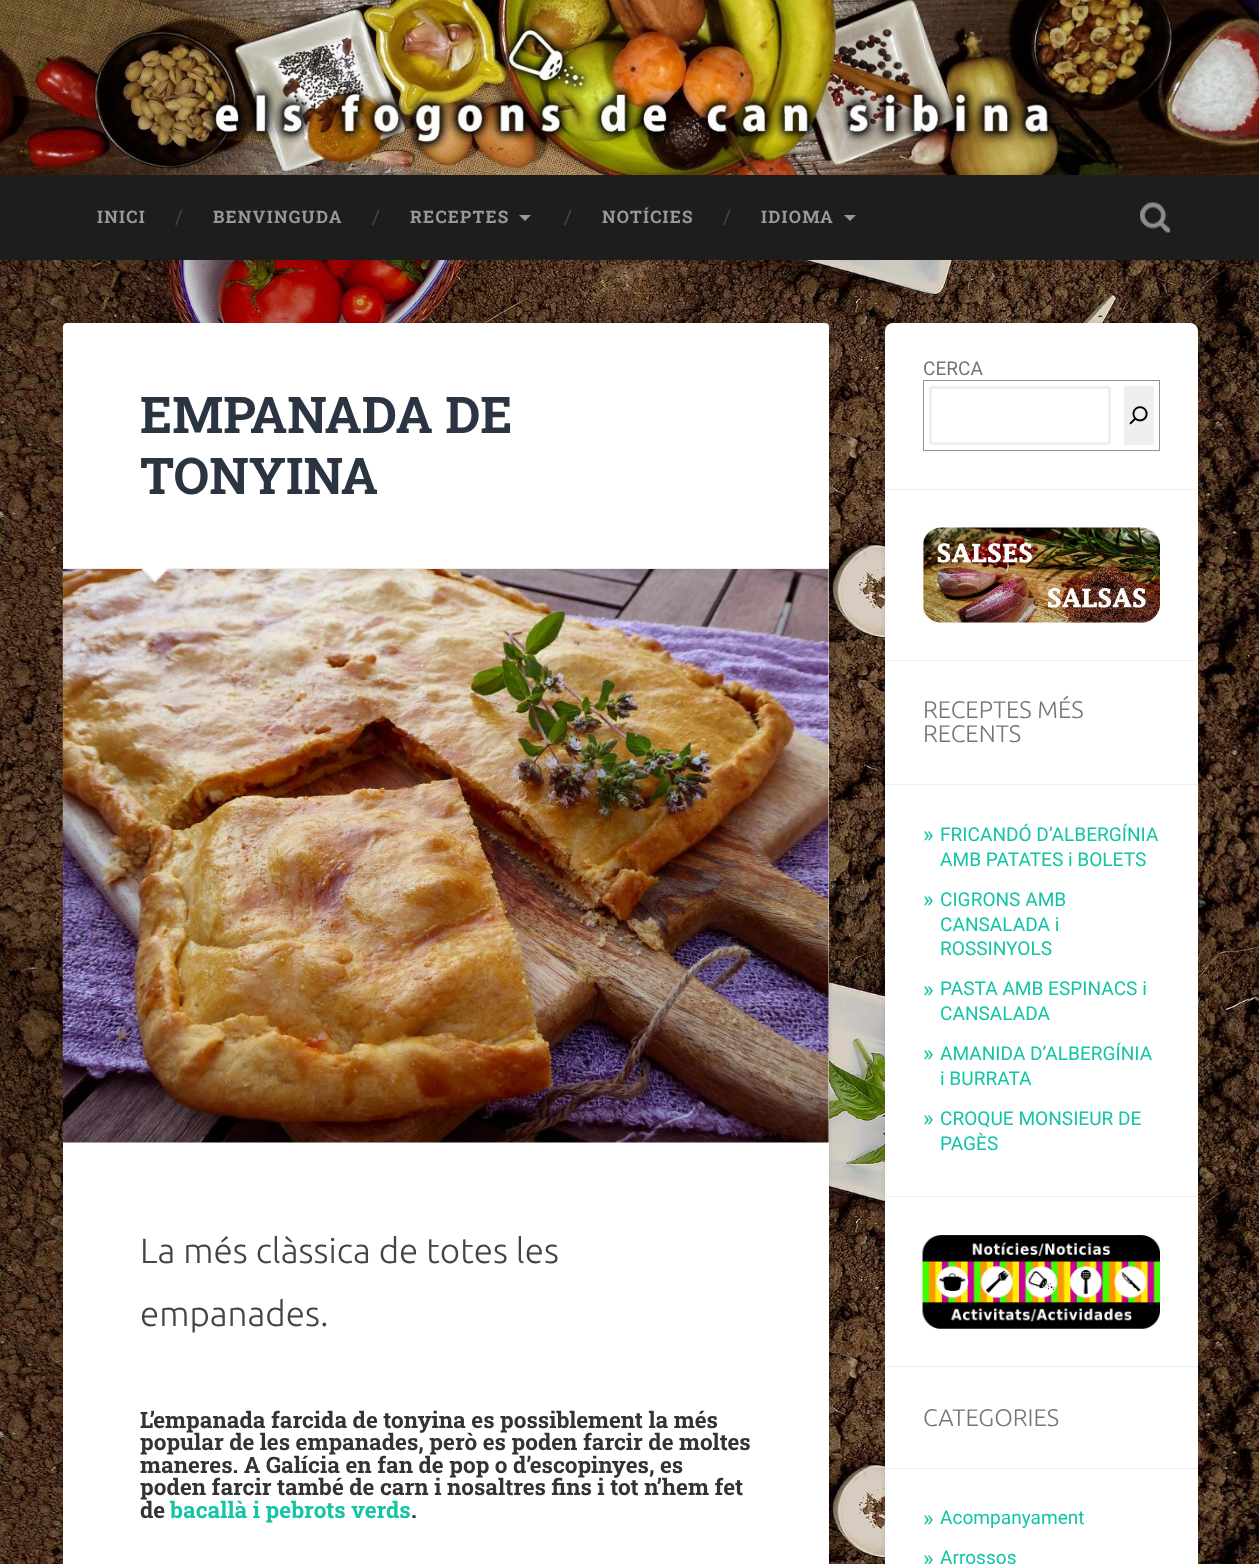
(async () => {
  const canvas = document.querySelector("canvas");
  canvas.width = 1259;
  canvas.height = 1564;
  const ctx = canvas.getContext("2d");
  ctx.miterLimit = 4;
  ctx.fontKerning = "normal";
  async function loadImage(src) {
    const img = new Image();
    img.src = src;
    await img.decode();
    return img;
  }
  let path;

  ctx.fillStyle = "#ffffff";
  ctx.fillRect(0, 0, 1259, 1564);
  ctx.drawImage(await loadImage("img/1.png"), 0, 260, 1259, 1304);
  ctx.drawImage(await loadImage("img/2.png"), 0, 0, 1259, 175);
  ctx.fillStyle = "#1d1d1d";
  ctx.fillRect(0, 175, 1259, 85);
  ctx.fillStyle = "#999999";
  path = new Path2D("M519 215H531L525 221Z");
  ctx.fill(path);
  path = new Path2D("M844 215H856L850 221Z");
  ctx.fill(path);
  ctx.drawImage(await loadImage("img/3.png"), 1140, 202, 30, 31);
  ctx.fillStyle = "rgba(0, 0, 0, 0.1)";
  ctx.filter = "blur(2.5px)";
  ctx.beginPath();
  ctx.roundRect(63, 324, 766, 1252, 4);
  ctx.fill();
  ctx.filter = "none";
  ctx.fillStyle = "#ffffff";
  ctx.beginPath();
  ctx.roundRect(63, 323, 766, 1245, 4);
  ctx.fill();
  ctx.drawImage(await loadImage("img/4.png"), 62, 568, 767, 575);
  ctx.fillStyle = "#eeeeee";
  ctx.fillRect(63, 568, 766, 1);
  path = new Path2D("M140 567.5H170L155 582.5Z");
  ctx.fill(path);
  ctx.fillStyle = "#ffffff";
  path = new Path2D("M141 566H169L155 580Z");
  ctx.fill(path);
  ctx.fillStyle = "rgba(0, 0, 0, 0.1)";
  ctx.filter = "blur(2.5px)";
  ctx.beginPath();
  ctx.roundRect(885, 324, 313, 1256, 8);
  ctx.fill();
  ctx.filter = "none";
  ctx.fillStyle = "#ffffff";
  ctx.beginPath();
  ctx.roundRect(885, 323, 313, 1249, 8);
  ctx.fill();
  ctx.strokeStyle = "#949494";
  ctx.strokeRect(923.5, 380.5, 236, 70);
  ctx.beginPath();
  ctx.roundRect(930.5, 387.5, 179, 56, 2.5);
  ctx.strokeStyle = "#eeeeee";
  ctx.lineWidth = 3;
  ctx.stroke();
  ctx.fillStyle = "#efefef";
  ctx.fillRect(1124, 386, 30, 59);
  ctx.drawImage(await loadImage("img/5.png"), 1129, 406, 19, 19);
  ctx.fillStyle = "#eeeeee";
  ctx.fillRect(885, 489, 313, 1);
  ctx.drawImage(await loadImage("img/6.png"), 922, 527, 238, 96);
  for (const [x, y, w, h, color] of [
    [885, 660, 313, 1, "#eeeeee"],
    [885, 784, 313, 1, "#eeeeee"],
    [885, 1196, 313, 1, "#eeeeee"],
  ]) {
    ctx.fillStyle = color;
    ctx.fillRect(x, y, w, h);
  }
  ctx.drawImage(await loadImage("img/7.png"), 922, 1235, 238, 94);
  ctx.fillRect(885, 1366, 313, 1);
  ctx.fillRect(885, 1468, 313, 1);
  ctx.letterSpacing = "1.25px";
  ctx.font = "bold 17.25px Roboto Slab";
  ctx.fillStyle = "#999999";
  ctx.fillText("INICI", 97, 223);
  ctx.letterSpacing = "0px";
  ctx.font = "20px Roboto Slab";
  ctx.fillStyle = "#444444";
  ctx.fillText("/", 175, 224);
  ctx.letterSpacing = "1.25px";
  ctx.font = "bold 17.25px Roboto Slab";
  ctx.fillStyle = "#999999";
  ctx.fillText("BENVINGUDA", 213, 223);
  ctx.letterSpacing = "0px";
  ctx.font = "20px Roboto Slab";
  ctx.fillStyle = "#444444";
  ctx.fillText("/", 372, 224);
  ctx.letterSpacing = "1.25px";
  ctx.font = "bold 17.25px Roboto Slab";
  ctx.fillStyle = "#999999";
  ctx.fillText("RECEPTES", 410, 223);
  ctx.letterSpacing = "0px";
  ctx.font = "20px Roboto Slab";
  ctx.fillStyle = "#444444";
  ctx.fillText("/", 564, 224);
  ctx.letterSpacing = "1.25px";
  ctx.font = "bold 17.25px Roboto Slab";
  ctx.fillStyle = "#999999";
  ctx.fillText("NOTÍCIES", 602, 223);
  ctx.letterSpacing = "0px";
  ctx.font = "20px Roboto Slab";
  ctx.fillStyle = "#444444";
  ctx.fillText("/", 723, 224);
  ctx.letterSpacing = "1.25px";
  ctx.font = "bold 17.25px Roboto Slab";
  ctx.fillStyle = "#999999";
  ctx.fillText("IDIOMA", 761, 223);
  ctx.letterSpacing = "0px";
  ctx.font = "bold 50.5px Roboto Slab";
  ctx.fillStyle = "#2b3542";
  ctx.fillText("EMPANADA DE", 140, 433);
  ctx.fillText("TONYINA", 140, 494);
  ctx.font = "300 35px Ubuntu";
  ctx.fillStyle = "#444444";
  ctx.fillText("La més clàssica de totes les", 140, 1263);
  ctx.fillText("empanades.", 140, 1326);
  ctx.font = "bold 22.5px Roboto Slab";
  ctx.fillStyle = "#333333";
  for (const [text, x, y] of [
    ["L’empanada farcida de tonyina es possiblement la més", 140, 1428],
    ["popular de les empanades, però es poden farcir de moltes", 140, 1450],
    ["maneres. A Galícia en fan de pop o d’escopinyes, es", 140, 1473],
    ["poden farcir també de carn i nosaltres fins i tot n’hem fet", 140, 1495],
    ["de", 140, 1518],
  ]) {
    ctx.fillText(text, x, y);
  }
  ctx.fillStyle = "#13c4a5";
  ctx.fillText("bacallà i pebrots verds", 170, 1518);
  ctx.fillStyle = "#333333";
  ctx.fillText(".", 411, 1518);
  ctx.font = "19.1px Roboto";
  ctx.fillStyle = "#767676";
  ctx.fillText("CERCA", 923, 375);
  ctx.font = "300 24px Ubuntu";
  ctx.fillText("RECEPTES MÉS", 923, 718);
  ctx.fillText("RECENTS", 923, 742);
  ctx.font = "22.5px Roboto";
  ctx.fillStyle = "#13c4a5";
  ctx.fillText("»", 923, 842);
  ctx.font = "19.1px Roboto";
  ctx.fillText("FRICANDÓ D’ALBERGÍNIA", 940, 841);
  ctx.fillText("AMB PATATES i BOLETS", 940, 866);
  ctx.font = "22.5px Roboto";
  ctx.fillText("»", 923, 907);
  ctx.font = "19.1px Roboto";
  for (const [text, x, y] of [
    ["CIGRONS AMB", 940, 906],
    ["CANSALADA i", 940, 931],
    ["ROSSINYOLS", 940, 955],
  ]) {
    ctx.fillText(text, x, y);
  }
  ctx.font = "22.5px Roboto";
  ctx.fillText("»", 923, 997);
  ctx.font = "19.1px Roboto";
  ctx.fillText("PASTA AMB ESPINACS i", 940, 995);
  ctx.fillText("CANSALADA", 940, 1020);
  ctx.font = "22.5px Roboto";
  ctx.fillText("»", 923, 1061);
  ctx.font = "19.1px Roboto";
  ctx.fillText("AMANIDA D’ALBERGÍNIA", 940, 1060);
  ctx.fillText("i BURRATA", 940, 1085);
  ctx.font = "22.5px Roboto";
  ctx.fillText("»", 923, 1126);
  ctx.font = "19.1px Roboto";
  ctx.fillText("CROQUE MONSIEUR DE", 940, 1125);
  ctx.fillText("PAGÈS", 940, 1150);
  ctx.font = "300 24px Ubuntu";
  ctx.fillStyle = "#767676";
  ctx.fillText("CATEGORIES", 923, 1426);
  ctx.font = "22.5px Roboto";
  ctx.fillStyle = "#13c4a5";
  ctx.fillText("»", 923, 1526);
  ctx.font = "19.1px Roboto";
  ctx.fillText("Acompanyament", 940, 1524);
  ctx.font = "22.5px Roboto";
  ctx.fillText("»", 923, 1566);
  ctx.font = "19.1px Roboto";
  ctx.fillText("Arrossos", 940, 1564);
})();
